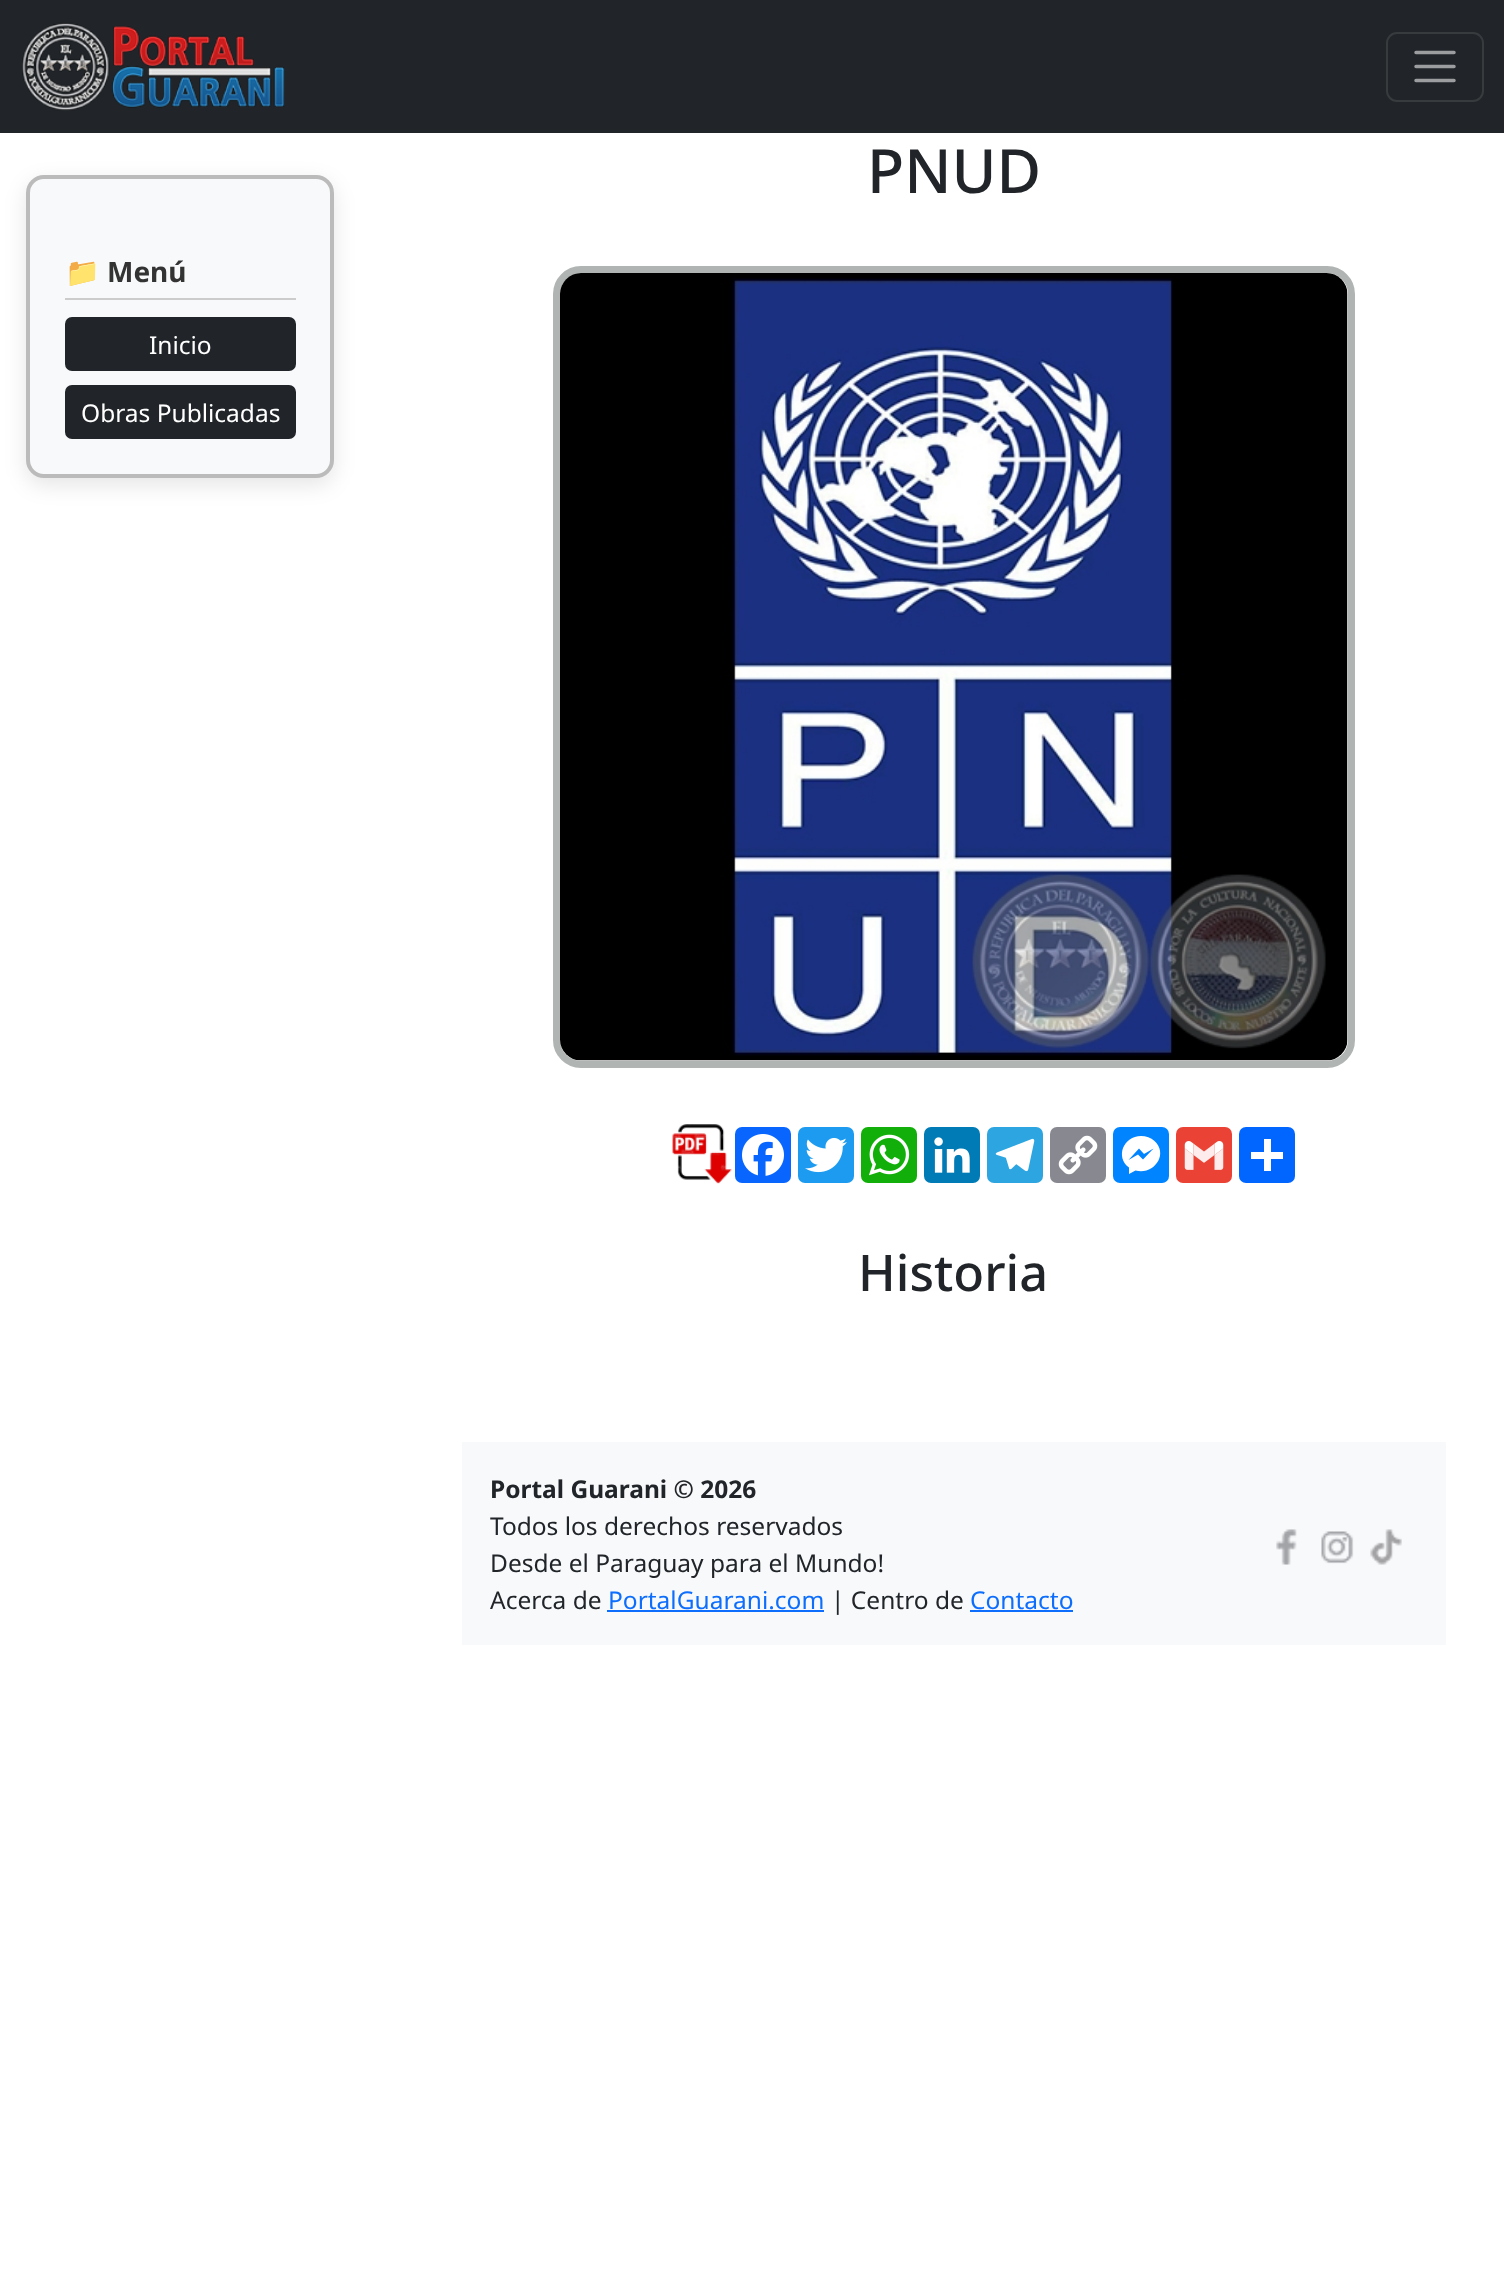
(async () => {
  const canvas = document.querySelector("canvas");
  canvas.width = 1504;
  canvas.height = 2272;
  const ctx = canvas.getContext("2d");
  ctx.miterLimit = 4;
  ctx.fontKerning = "normal";
  async function loadImage(src) {
    const img = new Image();
    img.src = src;
    await img.decode();
    return img;
  }
  let path;

  ctx.fillStyle = "#ffffff";
  ctx.fillRect(0, 0, 1504, 2272);
  ctx.fillStyle = "#212529";
  ctx.fillRect(0, 0, 1504, 133);
  ctx.drawImage(await loadImage("img/1.png"), 22, 22, 263, 89);
  ctx.beginPath();
  ctx.roundRect(1387, 33, 96, 68, 10);
  ctx.strokeStyle = "#373b3e";
  ctx.lineWidth = 2;
  ctx.stroke();
  path = new Path2D("M1416 52.5H1454M1416 66.5H1454M1416 80.5H1454");
  ctx.strokeStyle = "#9b9d9f";
  ctx.lineWidth = 3.5;
  ctx.lineCap = "round";
  ctx.stroke(path);
  ctx.fillStyle = "rgba(0, 0, 0, 0.1)";
  ctx.filter = "blur(10.5px)";
  ctx.beginPath();
  ctx.roundRect(26, 182, 308, 303, 18);
  ctx.fill();
  ctx.filter = "none";
  ctx.fillStyle = "#f8f9fa";
  ctx.beginPath();
  ctx.roundRect(28, 177, 304, 299, 16);
  ctx.fill();
  ctx.strokeStyle = "#bbbbbb";
  ctx.lineWidth = 4;
  ctx.stroke();
  ctx.fillStyle = "#cccccc";
  ctx.fillRect(65, 298, 231, 2);
  ctx.fillStyle = "#212529";
  ctx.beginPath();
  ctx.roundRect(66, 318, 229, 52, 6);
  ctx.fill();
  ctx.strokeStyle = "#212529";
  ctx.lineWidth = 2;
  ctx.stroke();
  ctx.beginPath();
  ctx.roundRect(66, 386, 229, 52, 6);
  ctx.fill();
  ctx.stroke();
  ctx.beginPath();
  ctx.roundRect(556.5, 269.5, 795, 795, 24.5);
  ctx.strokeStyle = "#b0b4b3";
  ctx.lineWidth = 7;
  ctx.stroke();
  ctx.drawImage(await loadImage("img/2.png"), 560, 273, 788, 788);
  ctx.drawImage(await loadImage("img/3.png"), 672, 1124, 60, 60);
  ctx.fillStyle = "#0866ff";
  ctx.beginPath();
  ctx.roundRect(735, 1127, 56, 56, 7);
  ctx.fill();
  ctx.drawImage(await loadImage("img/4.png"), 742, 1134, 42, 42);
  ctx.fillStyle = "#1d9bf0";
  ctx.beginPath();
  ctx.roundRect(798, 1127, 56, 56, 7);
  ctx.fill();
  ctx.drawImage(await loadImage("img/5.png"), 805, 1137, 42, 36);
  ctx.fillStyle = "#12af0a";
  ctx.beginPath();
  ctx.roundRect(861, 1127, 56, 56, 7);
  ctx.fill();
  ctx.drawImage(await loadImage("img/6.png"), 869, 1134, 41, 42);
  ctx.fillStyle = "#007bb5";
  ctx.beginPath();
  ctx.roundRect(924, 1127, 56, 56, 7);
  ctx.fill();
  ctx.drawImage(await loadImage("img/7.png"), 934, 1137, 36, 36);
  ctx.fillStyle = "#2ca5e0";
  ctx.beginPath();
  ctx.roundRect(987, 1127, 56, 56, 7);
  ctx.fill();
  ctx.drawImage(await loadImage("img/8.png"), 995, 1138, 40, 34);
  ctx.fillStyle = "#888990";
  ctx.beginPath();
  ctx.roundRect(1050, 1127, 56, 56, 7);
  ctx.fill();
  ctx.drawImage(await loadImage("img/9.png"), 1058, 1135, 40, 40);
  ctx.fillStyle = "#0084ff";
  ctx.beginPath();
  ctx.roundRect(1113, 1127, 56, 56, 7);
  ctx.fill();
  ctx.fillStyle = "#ffffff";
  path = new Path2D("M1141 1136C1123.5 1136 1115 1157 1129 1167.5V1174L1135.5 1170.5C1153.5 1175.5 1169 1154.5 1154.5 1141C1151 1137.5 1146 1136 1141 1136M1143 1159.5L1138 1154.5L1128.5 1160L1139 1148.5L1144 1154L1153.5 1148.5Z");
  ctx.fill(path);
  ctx.fillStyle = "#ea4335";
  ctx.beginPath();
  ctx.roundRect(1176, 1127, 56, 56, 7);
  ctx.fill();
  ctx.drawImage(await loadImage("img/10.png"), 1184, 1141, 40, 29);
  ctx.fillStyle = "#0166ff";
  ctx.beginPath();
  ctx.roundRect(1239, 1127, 56, 56, 7);
  ctx.fill();
  for (const [x, y, w, h, color] of [
    [1264, 1139, 7, 32, "#ffffff"],
    [1251, 1152, 32, 7, "#ffffff"],
    [462, 1442, 984, 203, "#f8f9fa"],
    [607, 1610, 217, 2, "#0d6efd"],
    [970, 1610, 103, 2, "#0d6efd"],
  ]) {
    ctx.fillStyle = color;
    ctx.fillRect(x, y, w, h);
  }
  ctx.drawImage(await loadImage("img/11.png"), 1276, 1529, 21, 36);
  ctx.drawImage(await loadImage("img/12.png"), 1321, 1531, 33, 33);
  ctx.drawImage(await loadImage("img/13.png"), 1370, 1529, 32, 36);
  ctx.font = "bold 28px Noto Color Emoji";
  ctx.fillStyle = "#333333";
  ctx.fillText("📁", 65, 282);
  ctx.font = "bold 28px Noto Sans";
  ctx.fillText("Menú", 107, 282);
  ctx.font = "24.5px Noto Sans";
  ctx.fillStyle = "#ffffff";
  ctx.fillText("Inicio", 149, 354);
  ctx.fillText("Obras Publicadas", 81, 422);
  ctx.font = "500 61px Noto Sans";
  ctx.fillStyle = "#212529";
  ctx.fillText("PNUD", 867, 193);
  ctx.font = "500 50.5px Noto Sans";
  ctx.fillText("Historia", 858, 1291);
  ctx.font = "bold 24.5px Noto Sans";
  ctx.fillText("Portal Guarani © 2026", 490, 1498);
  ctx.font = "24.5px Noto Sans";
  for (const [text, x, y] of [
    ["Todos los derechos reservados", 490, 1535],
    ["Desde el Paraguay para el Mundo!", 490, 1572],
    ["Acerca de", 490, 1609],
  ]) {
    ctx.fillText(text, x, y);
  }
  ctx.fillStyle = "#0d6efd";
  ctx.fillText("PortalGuarani.com", 608, 1609);
  ctx.fillStyle = "#212529";
  ctx.fillText("| Centro de", 831, 1609);
  ctx.fillStyle = "#0d6efd";
  ctx.fillText("Contacto", 970, 1609);
})();
